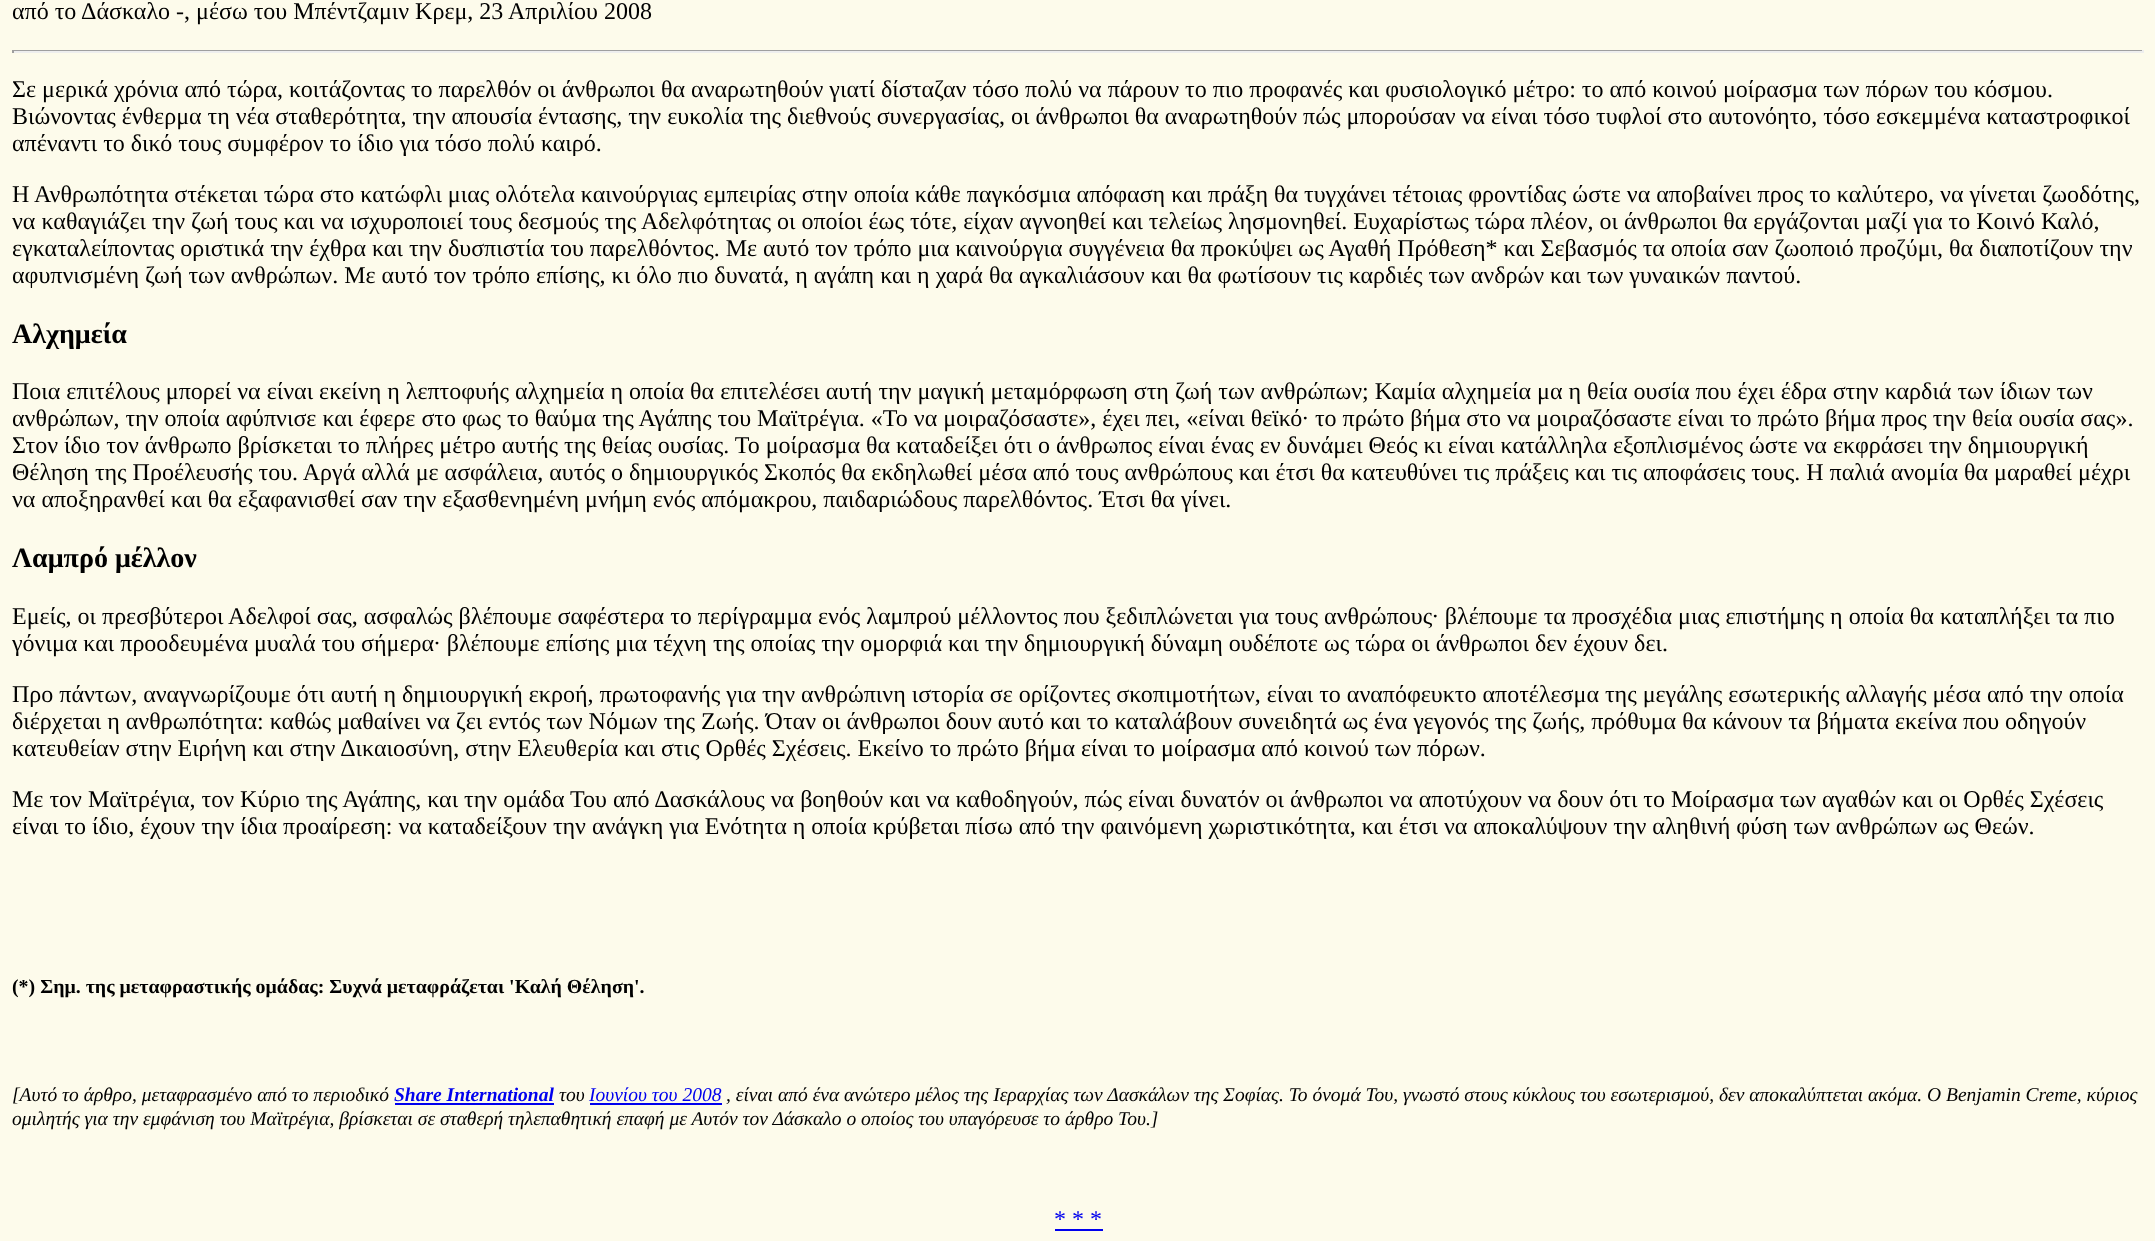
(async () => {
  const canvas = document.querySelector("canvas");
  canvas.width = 2155;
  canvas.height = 1241;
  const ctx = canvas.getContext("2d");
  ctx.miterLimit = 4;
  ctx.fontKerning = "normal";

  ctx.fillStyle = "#fdfbeb";
  ctx.fillRect(0, 0, 2155, 1241);
  for (const [x, y, w, h, color] of [
    [12, 50, 2132, 1, "#9f9f9f"],
    [2142, 50, 2, 3, "#eeeeee"],
    [12, 51, 2132, 2, "#eeeeee"],
    [12, 50, 2, 3, "#9f9f9f"],
    [395, 1103, 159, 2, "#0000ee"],
    [590, 1103, 132, 2, "#0000ee"],
    [1055, 1229, 48, 2, "#0000ee"],
  ]) {
    ctx.fillStyle = color;
    ctx.fillRect(x, y, w, h);
  }
  ctx.font = "24px Liberation Serif";
  ctx.fillStyle = "#000000";
  for (const [text, x, y] of [
    ["από το Δάσκαλο -, μέσω του Mπέντζαμιν Kρεμ, 23 Απριλίου 2008", 12, 19],
    ["Σε μερικά χρόνια από τώρα, κοιτάζοντας το παρελθόν οι άνθρωποι θα αναρωτηθούν γιατί δίσταζαν τόσο πολύ να πάρουν το πιο προφανές και φυσιολογικό μέτρο: το από κοινού μοίρασμα των πόρων του κόσμου.", 12, 97],
    ["Βιώνοντας ένθερμα τη νέα σταθερότητα, την απουσία έντασης, την ευκολία της διεθνούς συνεργασίας, οι άνθρωποι θα αναρωτηθούν πώς μπορούσαν να είναι τόσο τυφλοί στο αυτονόητο, τόσο εσκεμμένα καταστροφικοί", 12, 124],
    ["απέναντι το δικό τους συμφέρον το ίδιο για τόσο πολύ καιρό.", 12, 151],
    ["Η Ανθρωπότητα στέκεται τώρα στο κατώφλι μιας ολότελα καινούργιας εμπειρίας στην οποία κάθε παγκόσμια απόφαση και πράξη θα τυγχάνει τέτοιας φροντίδας ώστε να αποβαίνει προς το καλύτερο, να γίνεται ζωοδότης,", 12, 202],
    ["να καθαγιάζει την ζωή τους και να ισχυροποιεί τους δεσμούς της Αδελφότητας οι οποίοι έως τότε, είχαν αγνοηθεί και τελείως λησμονηθεί. Ευχαρίστως τώρα πλέον, οι άνθρωποι θα εργάζονται μαζί για το Κοινό Καλό,", 12, 229],
    ["εγκαταλείποντας οριστικά την έχθρα και την δυσπιστία του παρελθόντος. Με αυτό τον τρόπο μια καινούργια συγγένεια θα προκύψει ως Αγαθή Πρόθεση* και Σεβασμός τα οποία σαν ζωοποιό προζύμι, θα διαποτίζουν την", 12, 256],
    ["αφυπνισμένη ζωή των ανθρώπων. Με αυτό τον τρόπο επίσης, κι όλο πιο δυνατά, η αγάπη και η χαρά θα αγκαλιάσουν και θα φωτίσουν τις καρδιές των ανδρών και των γυναικών παντού.", 12, 283],
  ]) {
    ctx.fillText(text, x, y);
  }
  ctx.font = "bold 28px Liberation Serif";
  ctx.fillText("Αλχημεία", 12, 343);
  ctx.font = "24px Liberation Serif";
  for (const [text, x, y] of [
    ["Ποια επιτέλους μπορεί να είναι εκείνη η λεπτοφυής αλχημεία η οποία θα επιτελέσει αυτή την μαγική μεταμόρφωση στη ζωή των ανθρώπων; Καμία αλχημεία μα η θεία ουσία που έχει έδρα στην καρδιά των ίδιων των", 12, 399],
    ["ανθρώπων, την οποία αφύπνισε και έφερε στο φως το θαύμα της Αγάπης του Μαϊτρέγια. «Το να μοιραζόσαστε», έχει πει, «είναι θεϊκό· το πρώτο βήμα στο να μοιραζόσαστε είναι το πρώτο βήμα προς την θεία ουσία σας».", 12, 426],
    ["Στον ίδιο τον άνθρωπο βρίσκεται το πλήρες μέτρο αυτής της θείας ουσίας. Το μοίρασμα θα καταδείξει ότι ο άνθρωπος είναι ένας εν δυνάμει Θεός κι είναι κατάλληλα εξοπλισμένος ώστε να εκφράσει την δημιουργική", 12, 453],
    ["Θέληση της Προέλευσής του. Αργά αλλά με ασφάλεια, αυτός ο δημιουργικός Σκοπός θα εκδηλωθεί μέσα από τους ανθρώπους και έτσι θα κατευθύνει τις πράξεις και τις αποφάσεις τους. Η παλιά ανομία θα μαραθεί μέχρι", 12, 480],
    ["να αποξηρανθεί και θα εξαφανισθεί σαν την εξασθενημένη μνήμη ενός απόμακρου, παιδαριώδους παρελθόντος. Έτσι θα γίνει.", 12, 507],
  ]) {
    ctx.fillText(text, x, y);
  }
  ctx.font = "bold 28px Liberation Serif";
  ctx.fillText("Λαμπρό μέλλον", 12, 567);
  ctx.font = "24px Liberation Serif";
  for (const [text, x, y] of [
    ["Εμείς, οι πρεσβύτεροι Αδελφοί σας, ασφαλώς βλέπουμε σαφέστερα το περίγραμμα ενός λαμπρού μέλλοντος που ξεδιπλώνεται για τους ανθρώπους· βλέπουμε τα προσχέδια μιας επιστήμης η οποία θα καταπλήξει τα πιο", 12, 624],
    ["γόνιμα και προοδευμένα μυαλά του σήμερα· βλέπουμε επίσης μια τέχνη της οποίας την ομορφιά και την δημιουργική δύναμη ουδέποτε ως τώρα οι άνθρωποι δεν έχουν δει.", 12, 651],
    ["Προ πάντων, αναγνωρίζουμε ότι αυτή η δημιουργική εκροή, πρωτοφανής για την ανθρώπινη ιστορία σε ορίζοντες σκοπιμοτήτων, είναι το αναπόφευκτο αποτέλεσμα της μεγάλης εσωτερικής αλλαγής μέσα από την οποία", 12, 702],
    ["διέρχεται η ανθρωπότητα: καθώς μαθαίνει να ζει εντός των Νόμων της Ζωής. Όταν οι άνθρωποι δουν αυτό και το καταλάβουν συνειδητά ως ένα γεγονός της ζωής, πρόθυμα θα κάνουν τα βήματα εκείνα που οδηγούν", 12, 729],
    ["κατευθείαν στην Ειρήνη και στην Δικαιοσύνη, στην Ελευθερία και στις Ορθές Σχέσεις. Εκείνο το πρώτο βήμα είναι το μοίρασμα από κοινού των πόρων.", 12, 756],
    ["Με τον Μαϊτρέγια, τον Κύριο της Αγάπης, και την ομάδα Του από Δασκάλους να βοηθούν και να καθοδηγούν, πώς είναι δυνατόν οι άνθρωποι να αποτύχουν να δουν ότι το Μοίρασμα των αγαθών και οι Ορθές Σχέσεις", 12, 807],
    ["είναι το ίδιο, έχουν την ίδια προαίρεση: να καταδείξουν την ανάγκη για Ενότητα η οποία κρύβεται πίσω από την φαινόμενη χωριστικότητα, και έτσι να αποκαλύψουν την αληθινή φύση των ανθρώπων ως Θεών.", 12, 834],
  ]) {
    ctx.fillText(text, x, y);
  }
  ctx.font = "bold 19.9px Liberation Serif";
  ctx.fillText("(*) Σημ. της μεταφραστικής ομάδας: Συχνά μεταφράζεται 'Καλή Θέληση'.", 12, 993);
  ctx.font = "italic 19.5px Liberation Serif";
  ctx.fillText("[Αυτό το άρθρο, μεταφρασμένο από το περιοδικό", 12, 1101);
  ctx.font = "italic bold 19.5px Liberation Serif";
  ctx.fillStyle = "#0000ee";
  ctx.fillText("Share International", 394, 1101);
  ctx.font = "italic 19.5px Liberation Serif";
  ctx.fillStyle = "#000000";
  ctx.fillText("του", 559, 1101);
  ctx.fillStyle = "#0000ee";
  ctx.fillText("Ιουνίου του 2008", 589, 1101);
  ctx.fillStyle = "#000000";
  ctx.fillText(", είναι από ένα ανώτερο μέλος της Ιεραρχίας των Δασκάλων της Σοφίας. Το όνομά Του, γνωστό στους κύκλους του εσωτερισμού, δεν αποκαλύπτεται ακόμα. Ο Benjamin Creme, κύριος", 726, 1101);
  ctx.fillText("ομιλητής για την εμφάνιση του Μαϊτρέγια, βρίσκεται σε σταθερή τηλεπαθητική επαφή με Αυτόν τον Δάσκαλο ο οποίος του υπαγόρευσε το άρθρο Του.]", 12, 1125);
  ctx.font = "24px Liberation Serif";
  ctx.fillStyle = "#0000ee";
  ctx.fillText("* * *", 1054, 1227);
})();
